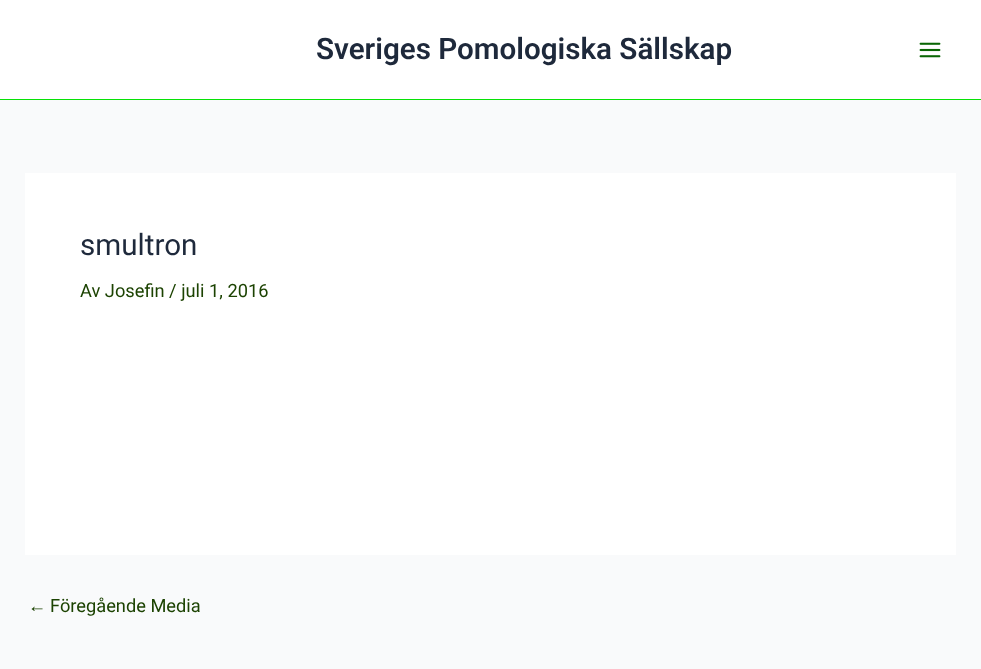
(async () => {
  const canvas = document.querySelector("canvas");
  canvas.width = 981;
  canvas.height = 669;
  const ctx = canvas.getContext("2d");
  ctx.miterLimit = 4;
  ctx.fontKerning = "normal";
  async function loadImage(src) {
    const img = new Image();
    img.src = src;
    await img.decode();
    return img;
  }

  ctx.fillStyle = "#f9fafb";
  ctx.fillRect(0, 0, 981, 669);
  ctx.fillStyle = "#ffffff";
  ctx.fillRect(0, 0, 981, 99);
  ctx.fillStyle = "#07e107";
  ctx.fillRect(0, 99, 981, 1);
  ctx.drawImage(await loadImage("img/1.png"), 919, 42, 22, 16);
  ctx.fillStyle = "#ffffff";
  ctx.fillRect(25, 173, 931, 382);
  ctx.font = "600 29.6px Roboto";
  ctx.fillStyle = "#1e293b";
  ctx.fillText("Sveriges Pomologiska Sällskap", 316, 59);
  ctx.font = "29.6px Roboto";
  ctx.fillText("smultron", 80, 255);
  ctx.font = "18.25px Roboto";
  ctx.fillStyle = "#1c4302";
  ctx.fillText("Av Josefin / juli 1, 2016", 80, 297);
  ctx.font = "18.25px Liberation Sans";
  ctx.fillText("←", 28, 612);
  ctx.font = "18.25px Roboto";
  ctx.fillText("Föregående Media", 50, 612);
})();
